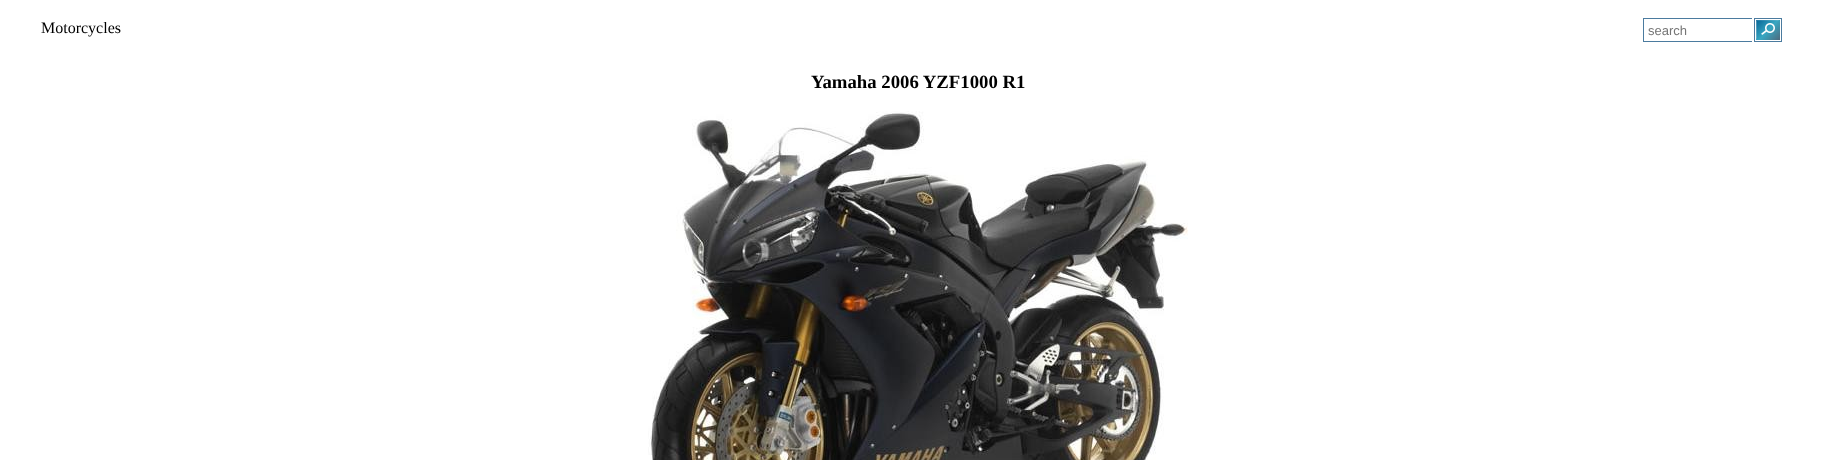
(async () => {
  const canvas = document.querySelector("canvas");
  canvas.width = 1835;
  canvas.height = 460;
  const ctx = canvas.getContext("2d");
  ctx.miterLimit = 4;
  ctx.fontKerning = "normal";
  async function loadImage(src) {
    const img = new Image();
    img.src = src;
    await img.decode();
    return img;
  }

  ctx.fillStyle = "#ffffff";
  ctx.fillRect(0, 0, 1835, 460);
  for (const [x, y, w, h, color] of [
    [1643, 18, 109, 1, "#4b7b9f"],
    [1643, 41, 109, 1, "#4b7b9f"],
    [1643, 18, 1, 24, "#4b7b9f"],
  ]) {
    ctx.fillStyle = color;
    ctx.fillRect(x, y, w, h);
  }
  ctx.strokeStyle = "#4b7b9f";
  ctx.strokeRect(1754.5, 18.5, 27, 23);
  ctx.drawImage(await loadImage("img/1.png"), 1756, 20, 24, 20);
  ctx.drawImage(await loadImage("img/2.png"), 648, 111, 540, 349);
  ctx.font = "16px Liberation Serif";
  ctx.fillStyle = "#000000";
  ctx.fillText("Motorcycles", 41, 33);
  ctx.font = "13px Liberation Sans";
  ctx.fillStyle = "#757575";
  ctx.fillText("search", 1648, 35);
  ctx.font = "bold 18.75px Liberation Serif";
  ctx.fillStyle = "#000000";
  ctx.fillText("Yamaha 2006 YZF1000 R1", 811, 88);
})();
